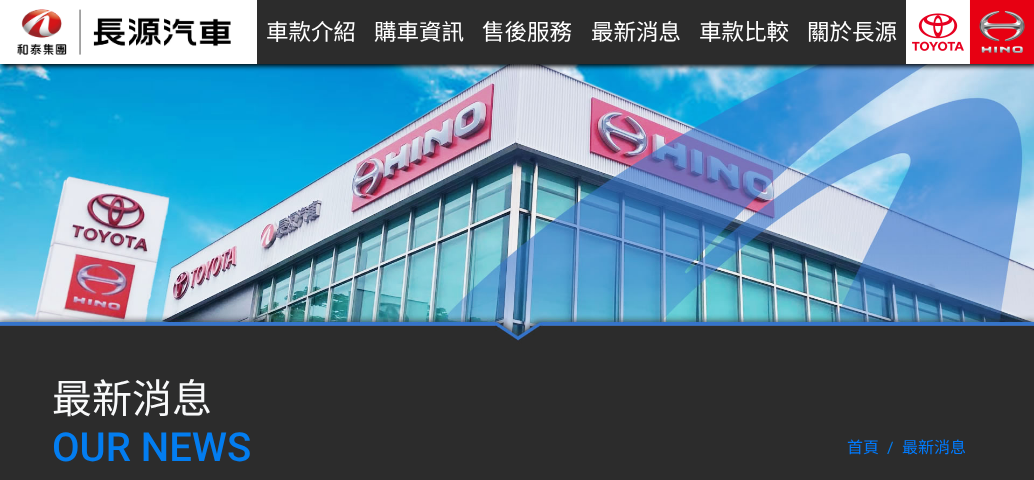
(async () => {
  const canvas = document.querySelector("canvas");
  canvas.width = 1034;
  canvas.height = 480;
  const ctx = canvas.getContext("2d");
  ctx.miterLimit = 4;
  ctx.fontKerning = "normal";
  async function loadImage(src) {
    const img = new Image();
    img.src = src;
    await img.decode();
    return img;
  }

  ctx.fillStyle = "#ffffff";
  ctx.fillRect(0, 0, 1034, 480);
  ctx.drawImage(await loadImage("img/3.png"), 0, 64, 1034, 280);
  ctx.fillStyle = "#000000";
  ctx.filter = "blur(2.5px)";
  ctx.beginPath();
  ctx.rect(2, 2, 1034, 64);
  ctx.fill();
  ctx.filter = "none";
  ctx.fillStyle = "#2c2c2c";
  ctx.fillRect(257, 0, 649, 64);
  ctx.fillStyle = "#ffffff";
  ctx.fillRect(0, 0, 257, 64);
  ctx.drawImage(await loadImage("img/1.png"), 17, 9, 214, 46);
  ctx.drawImage(await loadImage("img/2.png"), 906, 0, 128, 64);
  ctx.fillStyle = "#2c2c2c";
  ctx.fillRect(0, 344, 1034, 136);
  ctx.font = "22.5px Noto Sans CJK TC";
  ctx.fillStyle = "#ffffff";
  for (const [text, x, y] of [
    ["車款介紹", 266, 40],
    ["購車資訊", 374, 40],
    ["售後服務", 482, 40],
    ["最新消息", 591, 40],
    ["車款比較", 699, 40],
    ["關於長源", 807, 40],
  ]) {
    ctx.fillText(text, x, y);
  }
  ctx.font = "40px Noto Sans CJK TC";
  ctx.fillStyle = "#f8f9fa";
  ctx.fillText("最新消息", 52, 413);
  ctx.font = "500 40px Roboto";
  ctx.fillStyle = "#037df0";
  ctx.fillText("OUR NEWS", 52, 461);
  ctx.font = "16px Noto Sans CJK TC";
  ctx.fillStyle = "#007bff";
  ctx.fillText("首頁", 847, 453);
  ctx.font = "16px Roboto";
  ctx.fillStyle = "#037df0";
  ctx.fillText("/", 887, 453);
  ctx.font = "16px Noto Sans CJK TC";
  ctx.fillStyle = "#007bff";
  ctx.fillText("最新消息", 902, 453);
})();
